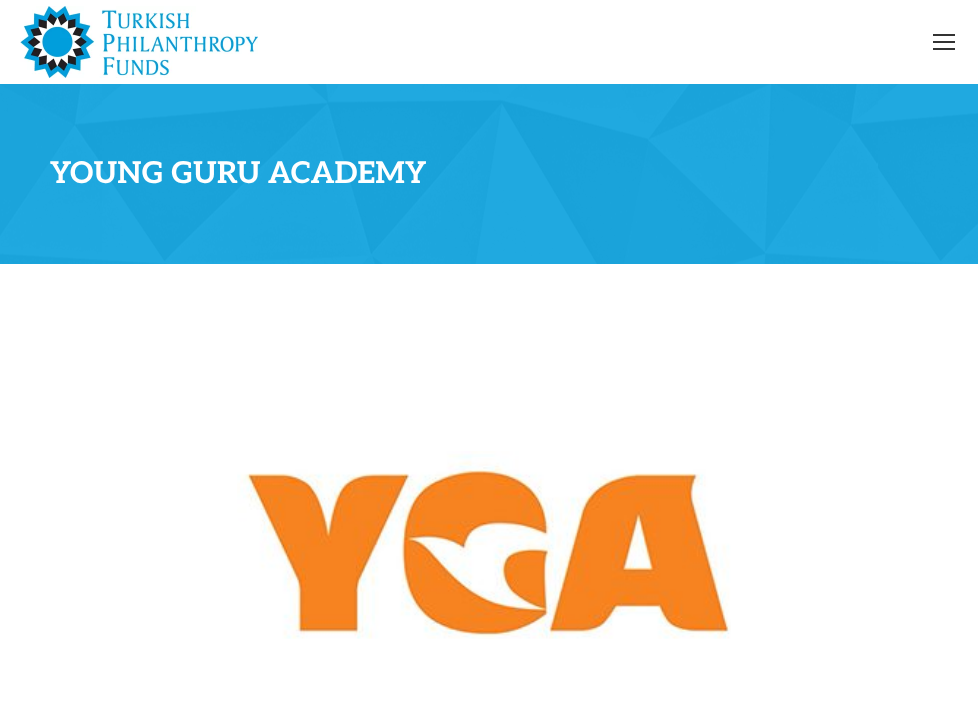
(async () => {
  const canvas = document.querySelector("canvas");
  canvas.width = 978;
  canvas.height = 702;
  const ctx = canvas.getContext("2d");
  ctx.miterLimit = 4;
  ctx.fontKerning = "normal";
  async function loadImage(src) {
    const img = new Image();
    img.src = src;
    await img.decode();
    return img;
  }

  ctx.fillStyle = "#ffffff";
  ctx.fillRect(0, 0, 978, 702);
  ctx.drawImage(await loadImage("img/1.png"), 20, 6, 238, 72);
  for (const [x, y, w, h, color] of [
    [933, 34, 22, 2, "#333333"],
    [933, 41, 22, 2, "#333333"],
    [933, 48, 22, 2, "#333333"],
    [0, 84, 978, 180, "#009ddc"],
  ]) {
    ctx.fillStyle = color;
    ctx.fillRect(x, y, w, h);
  }
  ctx.drawImage(await loadImage("img/2.png"), 0, 84, 978, 180);
  ctx.drawImage(await loadImage("img/3.png"), 237, 451, 494, 188);
  ctx.font = "bold 30px Aleo";
  ctx.fillStyle = "#ffffff";
  ctx.fillText("YOUNG GURU ACADEMY", 50, 183);
})();
